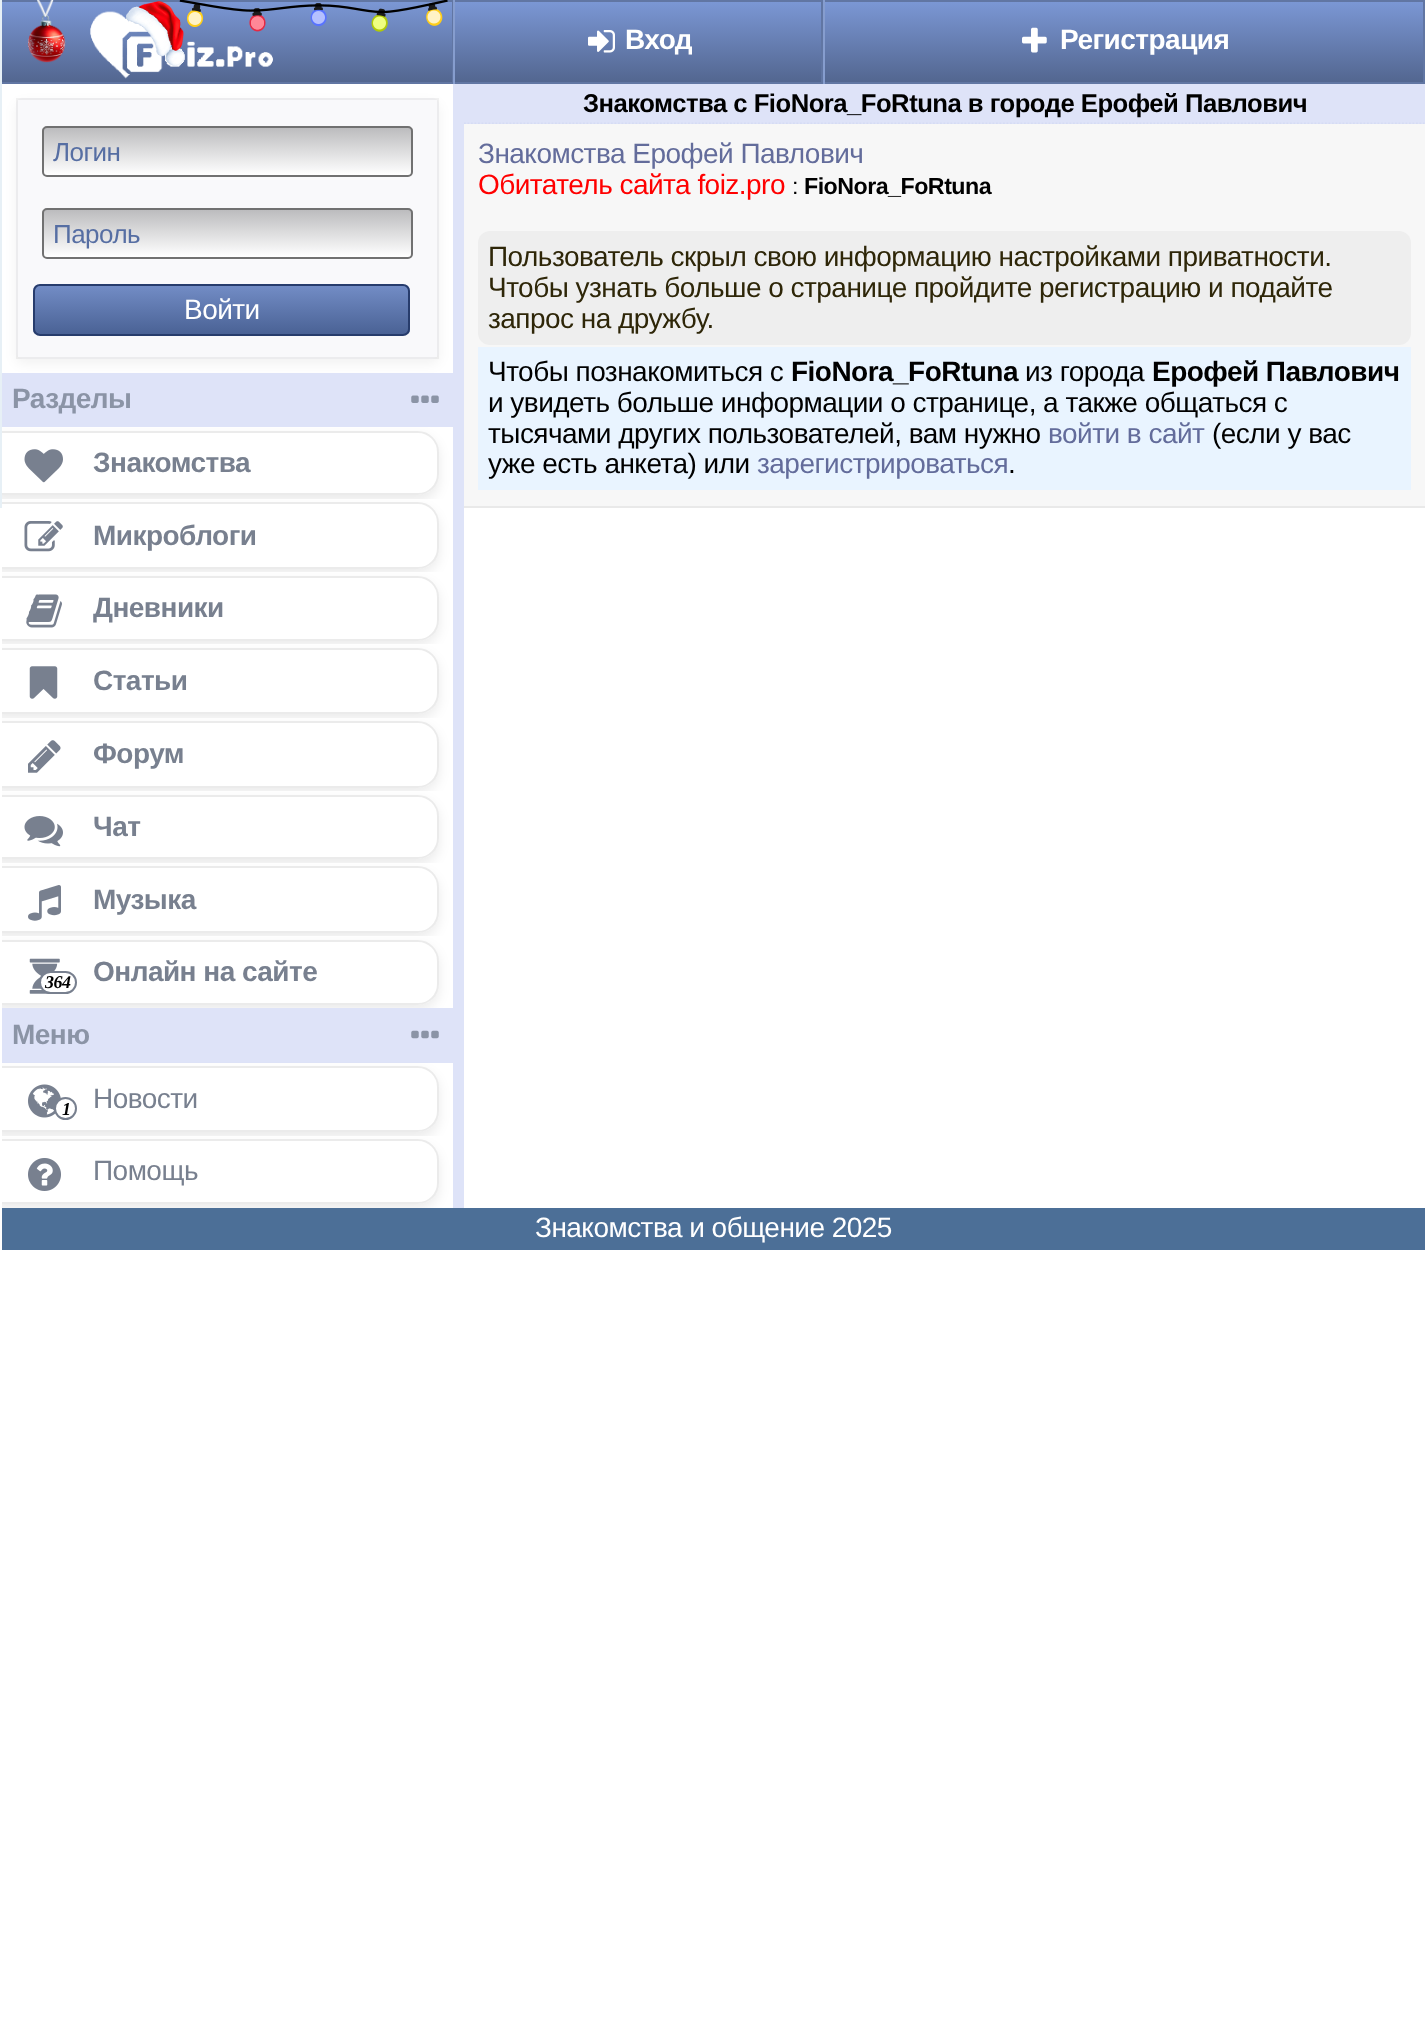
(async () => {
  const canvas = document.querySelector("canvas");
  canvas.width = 1425;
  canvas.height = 2028;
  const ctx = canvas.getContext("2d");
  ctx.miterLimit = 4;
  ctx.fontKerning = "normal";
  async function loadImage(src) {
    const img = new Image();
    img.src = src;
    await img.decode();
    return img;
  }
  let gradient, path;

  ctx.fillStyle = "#ffffff";
  ctx.fillRect(0, 0, 1425, 2028);
  ctx.fillStyle = "#e7f0f6";
  ctx.fillRect(0, 0, 2, 508);
  ctx.fillStyle = "#dee3f8";
  ctx.fillRect(453, 84, 11, 1124);
  gradient = ctx.createLinearGradient(0, 0, 0, 84);
  gradient.addColorStop(0, "#7c98d6");
  gradient.addColorStop(1, "#52658e");
  ctx.fillStyle = gradient;
  ctx.fillRect(2, 2, 450, 80);
  for (const [x, y, w, h, color] of [
    [2, 0, 1423, 2, "#6176a3"],
    [452, 0, 1, 84, "#6176a3"],
    [2, 82, 451, 2, "#6176a3"],
  ]) {
    ctx.fillStyle = color;
    ctx.fillRect(x, y, w, h);
  }
  ctx.drawImage(await loadImage("img/1.png"), 28, 0, 38, 63);
  ctx.drawImage(await loadImage("img/3.png"), 179, 0, 269, 32);
  ctx.drawImage(await loadImage("img/4.png"), 90, 11, 183, 68);
  ctx.drawImage(await loadImage("img/2.png"), 126, 1, 59, 65);
  ctx.fillStyle = "rgba(0, 0, 0, 0.05)";
  ctx.filter = "blur(6px)";
  ctx.beginPath();
  ctx.roundRect(16, 103, 423, 261, 7);
  ctx.fill();
  ctx.filter = "none";
  ctx.fillStyle = "#f9f9fb";
  ctx.beginPath();
  ctx.roundRect(16, 98, 423, 261, 7);
  ctx.fill();
  ctx.strokeStyle = "rgba(0, 0, 0, 0.05)";
  ctx.lineWidth = 2;
  ctx.strokeRect(17, 99, 421, 259);
  ctx.save();
  ctx.beginPath();
  ctx.roundRect(42, 126, 371, 51, 5);
  ctx.clip();
  gradient = ctx.createLinearGradient(44, 128, 44, 175);
  gradient.addColorStop(0, "#bcbcbe");
  gradient.addColorStop(1, "#ffffff");
  ctx.fillStyle = gradient;
  ctx.fillRect(42, 128, 371, 47);
  ctx.restore();
  ctx.beginPath();
  ctx.roundRect(43, 127, 369, 49, 4);
  ctx.strokeStyle = "#717171";
  ctx.stroke();
  ctx.save();
  ctx.beginPath();
  ctx.roundRect(42, 208, 371, 51, 5);
  ctx.clip();
  gradient = ctx.createLinearGradient(44, 210, 44, 257);
  gradient.addColorStop(0, "#bcbcbe");
  gradient.addColorStop(1, "#ffffff");
  ctx.fillStyle = gradient;
  ctx.fillRect(42, 210, 371, 47);
  ctx.restore();
  ctx.beginPath();
  ctx.roundRect(43, 209, 369, 49, 4);
  ctx.stroke();
  ctx.save();
  ctx.beginPath();
  ctx.roundRect(33, 284, 377, 52, 7);
  ctx.clip();
  gradient = ctx.createLinearGradient(35, 285, 35, 334);
  gradient.addColorStop(0, "#738dc6");
  gradient.addColorStop(1, "#4a6295");
  ctx.fillStyle = gradient;
  ctx.fillRect(33, 285, 377, 49);
  ctx.restore();
  ctx.beginPath();
  ctx.roundRect(34, 285, 375, 50, 6);
  ctx.strokeStyle = "#273c6c";
  ctx.stroke();
  ctx.fillStyle = "#dee3f8";
  ctx.fillRect(2, 373, 451, 54);
  ctx.drawImage(await loadImage("img/5.png"), 411, 395, 28, 8);
  ctx.save();
  ctx.beginPath();
  ctx.rect(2, 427, 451, 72);
  ctx.clip();
  path = new Path2D("M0 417H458V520H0ZM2 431H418C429.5 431 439 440.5 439 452V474C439 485.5 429.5 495 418 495H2C-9.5 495-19 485.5-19 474V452C-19 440.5-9.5 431 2 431Z");
  ctx.clip(path, "evenodd");
  ctx.fillStyle = "rgba(0, 0, 0, 0.08)";
  ctx.filter = "blur(6px)";
  ctx.beginPath();
  ctx.roundRect(-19, 436, 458, 65, 21);
  ctx.fill();
  ctx.filter = "none";
  ctx.restore();
  ctx.save();
  ctx.beginPath();
  ctx.rect(2, 427, 451, 72);
  ctx.clip();
  ctx.beginPath();
  ctx.roundRect(-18, 432, 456, 62, 20);
  ctx.strokeStyle = "rgba(0, 0, 0, 0.08)";
  ctx.stroke();
  ctx.restore();
  ctx.drawImage(await loadImage("img/6.png"), 24, 449, 39, 34);
  ctx.save();
  ctx.beginPath();
  ctx.rect(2, 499, 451, 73);
  ctx.clip();
  path = new Path2D("M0 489H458V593H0ZM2 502H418C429.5 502 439 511.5 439 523V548C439 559.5 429.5 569 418 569H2C-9.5 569-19 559.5-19 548V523C-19 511.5-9.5 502 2 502Z");
  ctx.clip(path, "evenodd");
  ctx.fillStyle = "rgba(0, 0, 0, 0.08)";
  ctx.filter = "blur(6px)";
  ctx.beginPath();
  ctx.roundRect(-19, 508, 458, 66, 21);
  ctx.fill();
  ctx.filter = "none";
  ctx.restore();
  ctx.save();
  ctx.beginPath();
  ctx.rect(2, 499, 451, 73);
  ctx.clip();
  ctx.beginPath();
  ctx.roundRect(-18, 503, 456, 65, 20);
  ctx.strokeStyle = "rgba(0, 0, 0, 0.08)";
  ctx.stroke();
  ctx.restore();
  ctx.drawImage(await loadImage("img/7.png"), 24, 521, 39, 31);
  ctx.save();
  ctx.beginPath();
  ctx.rect(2, 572, 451, 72);
  ctx.clip();
  path = new Path2D("M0 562H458V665H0ZM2 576H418C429.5 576 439 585.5 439 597V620C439 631.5 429.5 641 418 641H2C-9.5 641-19 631.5-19 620V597C-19 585.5-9.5 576 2 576Z");
  ctx.clip(path, "evenodd");
  ctx.fillStyle = "rgba(0, 0, 0, 0.08)";
  ctx.filter = "blur(6px)";
  ctx.beginPath();
  ctx.roundRect(-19, 581, 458, 65, 21);
  ctx.fill();
  ctx.filter = "none";
  ctx.restore();
  ctx.save();
  ctx.beginPath();
  ctx.rect(2, 572, 451, 72);
  ctx.clip();
  ctx.beginPath();
  ctx.roundRect(-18, 577, 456, 63, 20);
  ctx.strokeStyle = "rgba(0, 0, 0, 0.08)";
  ctx.stroke();
  ctx.restore();
  ctx.drawImage(await loadImage("img/8.png"), 26, 594, 36, 34);
  ctx.save();
  ctx.beginPath();
  ctx.rect(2, 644, 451, 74);
  ctx.clip();
  path = new Path2D("M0 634H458V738H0ZM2 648H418C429.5 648 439 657.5 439 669V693C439 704.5 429.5 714 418 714H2C-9.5 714-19 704.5-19 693V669C-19 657.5-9.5 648 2 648Z");
  ctx.clip(path, "evenodd");
  ctx.fillStyle = "rgba(0, 0, 0, 0.08)";
  ctx.filter = "blur(6px)";
  ctx.beginPath();
  ctx.roundRect(-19, 653, 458, 66, 21);
  ctx.fill();
  ctx.filter = "none";
  ctx.restore();
  ctx.save();
  ctx.beginPath();
  ctx.rect(2, 644, 451, 74);
  ctx.clip();
  ctx.beginPath();
  ctx.roundRect(-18, 649, 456, 64, 20);
  ctx.strokeStyle = "rgba(0, 0, 0, 0.08)";
  ctx.stroke();
  ctx.restore();
  ctx.drawImage(await loadImage("img/9.png"), 29, 666, 29, 33);
  ctx.save();
  ctx.beginPath();
  ctx.rect(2, 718, 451, 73);
  ctx.clip();
  path = new Path2D("M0 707H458V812H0ZM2 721H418C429.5 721 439 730.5 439 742V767C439 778.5 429.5 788 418 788H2C-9.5 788-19 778.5-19 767V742C-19 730.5-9.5 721 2 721Z");
  ctx.clip(path, "evenodd");
  ctx.fillStyle = "rgba(0, 0, 0, 0.08)";
  ctx.filter = "blur(6px)";
  ctx.beginPath();
  ctx.roundRect(-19, 726, 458, 67, 21);
  ctx.fill();
  ctx.filter = "none";
  ctx.restore();
  ctx.save();
  ctx.beginPath();
  ctx.rect(2, 718, 451, 73);
  ctx.clip();
  ctx.beginPath();
  ctx.roundRect(-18, 722, 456, 65, 20);
  ctx.strokeStyle = "rgba(0, 0, 0, 0.08)";
  ctx.stroke();
  ctx.restore();
  ctx.drawImage(await loadImage("img/10.png"), 28, 740, 33, 33);
  ctx.save();
  ctx.beginPath();
  ctx.rect(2, 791, 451, 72);
  ctx.clip();
  path = new Path2D("M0 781H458V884H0ZM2 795H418C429.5 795 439 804.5 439 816V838C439 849.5 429.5 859 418 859H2C-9.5 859-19 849.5-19 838V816C-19 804.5-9.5 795 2 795Z");
  ctx.clip(path, "evenodd");
  ctx.fillStyle = "rgba(0, 0, 0, 0.08)";
  ctx.filter = "blur(6px)";
  ctx.beginPath();
  ctx.roundRect(-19, 800, 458, 65, 21);
  ctx.fill();
  ctx.filter = "none";
  ctx.restore();
  ctx.save();
  ctx.beginPath();
  ctx.rect(2, 791, 451, 72);
  ctx.clip();
  ctx.beginPath();
  ctx.roundRect(-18, 796, 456, 62, 20);
  ctx.strokeStyle = "rgba(0, 0, 0, 0.08)";
  ctx.stroke();
  ctx.restore();
  ctx.drawImage(await loadImage("img/11.png"), 24, 816, 39, 31);
  ctx.save();
  ctx.beginPath();
  ctx.rect(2, 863, 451, 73);
  ctx.clip();
  path = new Path2D("M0 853H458V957H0ZM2 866H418C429.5 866 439 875.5 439 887V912C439 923.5 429.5 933 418 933H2C-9.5 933-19 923.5-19 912V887C-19 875.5-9.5 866 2 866Z");
  ctx.clip(path, "evenodd");
  ctx.fillStyle = "rgba(0, 0, 0, 0.08)";
  ctx.filter = "blur(6px)";
  ctx.beginPath();
  ctx.roundRect(-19, 872, 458, 66, 21);
  ctx.fill();
  ctx.filter = "none";
  ctx.restore();
  ctx.save();
  ctx.beginPath();
  ctx.rect(2, 863, 451, 73);
  ctx.clip();
  ctx.beginPath();
  ctx.roundRect(-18, 867, 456, 65, 20);
  ctx.strokeStyle = "rgba(0, 0, 0, 0.08)";
  ctx.stroke();
  ctx.restore();
  ctx.drawImage(await loadImage("img/12.png"), 28, 885, 33, 36);
  ctx.save();
  ctx.beginPath();
  ctx.rect(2, 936, 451, 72);
  ctx.clip();
  path = new Path2D("M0 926H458V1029H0ZM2 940H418C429.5 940 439 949.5 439 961V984C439 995.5 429.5 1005 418 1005H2C-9.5 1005-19 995.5-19 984V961C-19 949.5-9.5 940 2 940Z");
  ctx.clip(path, "evenodd");
  ctx.fillStyle = "rgba(0, 0, 0, 0.08)";
  ctx.filter = "blur(6px)";
  ctx.beginPath();
  ctx.roundRect(-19, 945, 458, 65, 21);
  ctx.fill();
  ctx.filter = "none";
  ctx.restore();
  ctx.save();
  ctx.beginPath();
  ctx.rect(2, 936, 451, 72);
  ctx.clip();
  ctx.beginPath();
  ctx.roundRect(-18, 941, 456, 63, 20);
  ctx.strokeStyle = "rgba(0, 0, 0, 0.08)";
  ctx.stroke();
  ctx.restore();
  ctx.drawImage(await loadImage("img/13.png"), 29, 958, 31, 36);
  ctx.fillStyle = "#ffffff";
  ctx.beginPath();
  ctx.roundRect(40, 972, 36, 21, 10.5);
  ctx.fill();
  ctx.strokeStyle = "#78808f";
  ctx.stroke();
  ctx.fillStyle = "#dee3f8";
  ctx.fillRect(2, 1008, 451, 55);
  ctx.drawImage(await loadImage("img/14.png"), 411, 1030, 28, 9);
  ctx.save();
  ctx.beginPath();
  ctx.rect(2, 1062, 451, 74);
  ctx.clip();
  path = new Path2D("M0 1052H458V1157H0ZM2 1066H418C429.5 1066 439 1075.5 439 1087V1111C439 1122.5 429.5 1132 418 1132H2C-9.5 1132-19 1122.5-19 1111V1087C-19 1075.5-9.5 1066 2 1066Z");
  ctx.clip(path, "evenodd");
  ctx.fillStyle = "rgba(0, 0, 0, 0.08)";
  ctx.filter = "blur(6px)";
  ctx.beginPath();
  ctx.roundRect(-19, 1071, 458, 67, 21);
  ctx.fill();
  ctx.filter = "none";
  ctx.restore();
  ctx.save();
  ctx.beginPath();
  ctx.rect(2, 1062, 451, 74);
  ctx.clip();
  ctx.beginPath();
  ctx.roundRect(-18, 1067, 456, 64, 20);
  ctx.strokeStyle = "rgba(0, 0, 0, 0.08)";
  ctx.stroke();
  ctx.restore();
  ctx.drawImage(await loadImage("img/15.png"), 28, 1084, 33, 34);
  ctx.fillStyle = "#ffffff";
  ctx.beginPath();
  ctx.arc(65.5, 1108.5, 10.5, 0, Math.PI * 2);
  ctx.fill();
  ctx.stroke();
  ctx.save();
  ctx.beginPath();
  ctx.rect(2, 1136, 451, 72);
  ctx.clip();
  path = new Path2D("M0 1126H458V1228H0ZM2 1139H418C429.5 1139 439 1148.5 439 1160V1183C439 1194.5 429.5 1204 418 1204H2C-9.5 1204-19 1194.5-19 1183V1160C-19 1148.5-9.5 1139 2 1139Z");
  ctx.clip(path, "evenodd");
  ctx.fillStyle = "rgba(0, 0, 0, 0.08)";
  ctx.filter = "blur(6px)";
  ctx.beginPath();
  ctx.roundRect(-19, 1145, 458, 64, 21);
  ctx.fill();
  ctx.filter = "none";
  ctx.restore();
  ctx.save();
  ctx.beginPath();
  ctx.rect(2, 1136, 451, 72);
  ctx.clip();
  ctx.beginPath();
  ctx.roundRect(-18, 1140, 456, 63, 20);
  ctx.strokeStyle = "rgba(0, 0, 0, 0.08)";
  ctx.stroke();
  ctx.restore();
  ctx.drawImage(await loadImage("img/16.png"), 28, 1158, 33, 33);
  gradient = ctx.createLinearGradient(453, 0, 453, 84);
  gradient.addColorStop(0, "#7c98d6");
  gradient.addColorStop(1, "#52658e");
  ctx.fillStyle = gradient;
  ctx.fillRect(455, 2, 968, 80);
  for (const [x, y, w, h, color] of [
    [821, 0, 2, 84, "#6176a3"],
    [453, 82, 370, 2, "#6176a3"],
    [453, 0, 2, 84, "#869dce"],
  ]) {
    ctx.fillStyle = color;
    ctx.fillRect(x, y, w, h);
  }
  ctx.drawImage(await loadImage("img/17.png"), 588, 30, 27, 23);
  for (const [x, y, w, h, color] of [
    [1423, 0, 2, 84, "#6176a3"],
    [823, 82, 602, 2, "#6176a3"],
    [823, 0, 2, 84, "#869dce"],
  ]) {
    ctx.fillStyle = color;
    ctx.fillRect(x, y, w, h);
  }
  ctx.drawImage(await loadImage("img/18.png"), 1022, 27, 25, 26);
  ctx.fillStyle = "#dee3f8";
  ctx.fillRect(464, 84, 961, 40);
  path = new Path2D("M464 123.5H1424.5");
  ctx.strokeStyle = "#d5dcf4";
  ctx.lineWidth = 1.8;
  ctx.setLineDash([1.75, 1.75]);
  ctx.stroke(path);
  ctx.fillStyle = "#f7f7f7";
  ctx.fillRect(464, 124, 961, 382);
  ctx.fillStyle = "#e9e9e9";
  ctx.fillRect(464, 506, 961, 2);
  ctx.fillStyle = "#eeeeee";
  ctx.beginPath();
  ctx.roundRect(478, 231, 933, 114, 12);
  ctx.fill();
  ctx.fillStyle = "#e9f4ff";
  ctx.fillRect(478, 347, 933, 143);
  ctx.fillStyle = "#4c6f97";
  ctx.fillRect(2, 1208, 1423, 42);
  ctx.letterSpacing = "-0.53px";
  ctx.font = "26px Liberation Sans";
  ctx.fillStyle = "#566ea3";
  ctx.fillText("Логин", 53, 161);
  ctx.fillText("Пароль", 53, 243);
  ctx.font = "28px Liberation Sans";
  ctx.fillStyle = "#ffffff";
  ctx.fillText("Войти", 184, 319);
  ctx.font = "bold 28px Liberation Sans";
  ctx.fillStyle = "#8b94a6";
  ctx.fillText("Разделы", 12, 408);
  ctx.fillStyle = "#78808f";
  for (const [text, x, y] of [
    ["Знакомства", 93, 472],
    ["Микроблоги", 93, 545],
    ["Дневники", 93, 617],
    ["Статьи", 93, 690],
    ["Форум", 93, 763],
    ["Чат", 93, 836],
    ["Музыка", 93, 909],
  ]) {
    ctx.fillText(text, x, y);
  }
  ctx.font = "italic bold 18px Liberation Serif";
  ctx.fillStyle = "#000000";
  ctx.fillText("364", 45, 988);
  ctx.font = "bold 28px Liberation Sans";
  ctx.fillStyle = "#78808f";
  ctx.fillText("Онлайн на сайте", 93, 981);
  ctx.fillStyle = "#8b94a6";
  ctx.fillText("Меню", 12, 1044);
  ctx.font = "italic bold 18px Liberation Serif";
  ctx.fillStyle = "#000000";
  ctx.fillText("1", 62, 1115);
  ctx.font = "28px Liberation Sans";
  ctx.fillStyle = "#78808f";
  ctx.fillText("Новости", 93, 1108);
  ctx.fillText("Помощь", 93, 1180);
  ctx.font = "bold 28px Liberation Sans";
  ctx.fillStyle = "#ffffff";
  ctx.fillText("Вход", 625, 49);
  ctx.fillText("Регистрация", 1060, 49);
  ctx.font = "bold 25.7px Liberation Sans";
  ctx.fillStyle = "#000000";
  ctx.fillText("Знакомства с FioNora_FoRtuna в городе Ерофей Павлович", 583, 112);
  ctx.font = "28px Liberation Sans";
  ctx.fillStyle = "#636c9b";
  ctx.fillText("Знакомства Ерофей Павлович", 478, 163);
  ctx.fillStyle = "#ff0000";
  ctx.fillText("Обитатель сайта foiz.pro", 478, 194);
  ctx.font = "23.25px Liberation Sans";
  ctx.fillStyle = "#000000";
  ctx.fillText(":", 792, 194);
  ctx.font = "bold 23.25px Liberation Sans";
  ctx.fillText("FioNora_FoRtuna", 804, 194);
  ctx.font = "28px Liberation Sans";
  ctx.fillStyle = "#2e2608";
  for (const [text, x, y] of [
    ["Пользователь скрыл свою информацию настройками приватности.", 488, 266],
    ["Чтобы узнать больше о странице пройдите регистрацию и подайте", 488, 297],
    ["запрос на дружбу.", 488, 328],
  ]) {
    ctx.fillText(text, x, y);
  }
  ctx.fillStyle = "#000000";
  ctx.fillText("Чтобы познакомиться с", 488, 381);
  ctx.font = "bold 28px Liberation Sans";
  ctx.fillText("FioNora_FoRtuna", 791, 381);
  ctx.font = "28px Liberation Sans";
  ctx.fillText("из города", 1025, 381);
  ctx.font = "bold 28px Liberation Sans";
  ctx.fillText("Ерофей Павлович", 1152, 381);
  ctx.font = "28px Liberation Sans";
  ctx.fillText("и увидеть больше информации о странице, а также общаться с", 488, 412);
  ctx.fillText("тысячами других пользователей, вам нужно", 488, 443);
  ctx.fillStyle = "#636c9b";
  ctx.fillText("войти в сайт", 1048, 443);
  ctx.fillStyle = "#000000";
  ctx.fillText("(если у вас", 1212, 443);
  ctx.fillText("уже есть анкета) или", 488, 473);
  ctx.fillStyle = "#636c9b";
  ctx.fillText("зарегистрироваться", 757, 473);
  ctx.fillStyle = "#000000";
  ctx.fillText(".", 1008, 473);
  ctx.fillStyle = "#ffffff";
  ctx.fillText("Знакомства и общение 2025", 535, 1237);
})();
